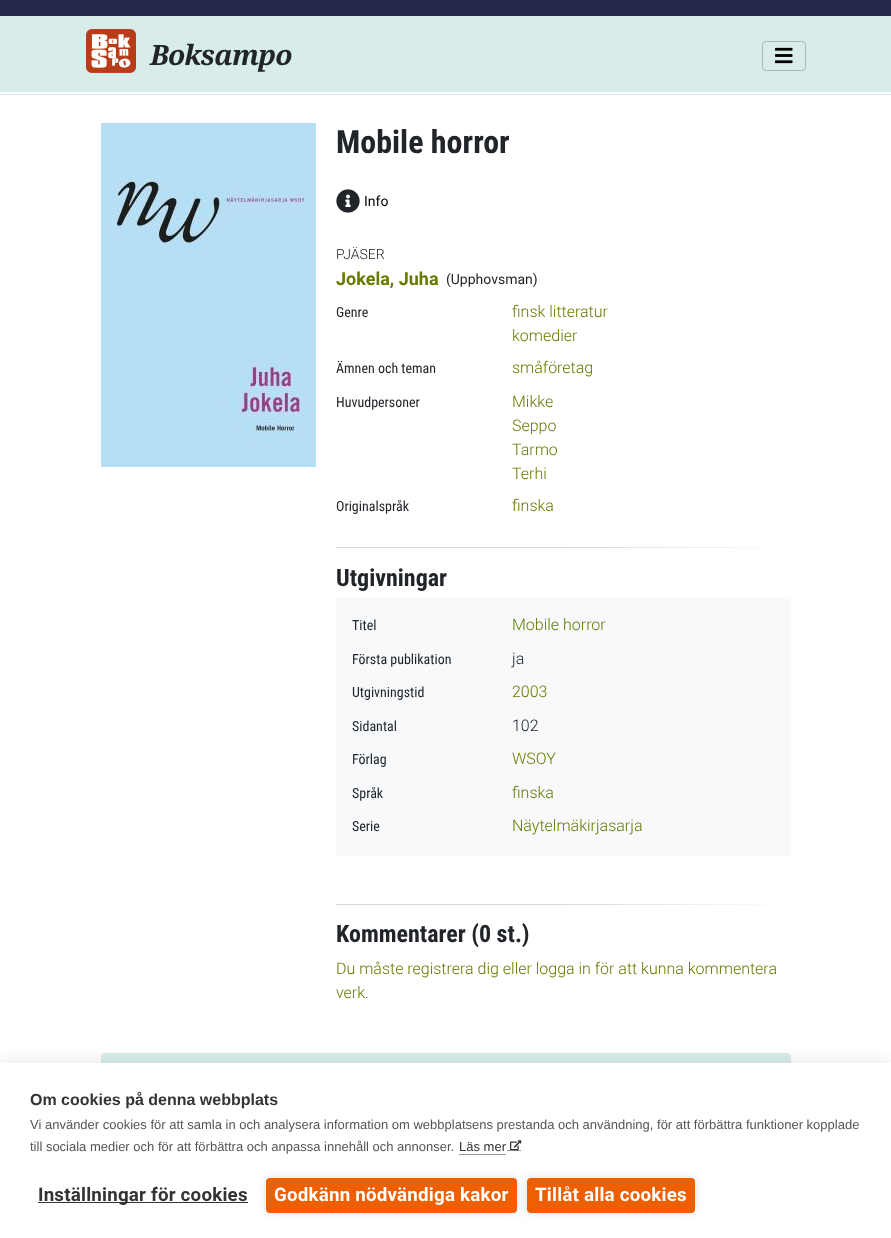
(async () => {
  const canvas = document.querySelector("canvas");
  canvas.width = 891;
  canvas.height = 1238;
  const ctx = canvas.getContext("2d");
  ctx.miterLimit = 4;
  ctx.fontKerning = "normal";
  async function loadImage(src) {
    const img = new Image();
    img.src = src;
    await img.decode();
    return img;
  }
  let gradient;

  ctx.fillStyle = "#ffffff";
  ctx.fillRect(0, 0, 891, 1238);
  for (const [x, y, w, h, color] of [
    [0, 0, 891, 16, "#25284d"],
    [0, 16, 891, 79, "#d8edea"],
    [0, 92, 891, 2, "#ffffff"],
  ]) {
    ctx.fillStyle = color;
    ctx.fillRect(x, y, w, h);
  }
  ctx.drawImage(await loadImage("img/1.png"), 86, 29, 50, 44);
  ctx.beginPath();
  ctx.roundRect(762.5, 41.5, 43, 29, 3.5);
  ctx.strokeStyle = "#adb5bd";
  ctx.stroke();
  ctx.drawImage(await loadImage("img/2.png"), 775, 47, 18, 17);
  ctx.drawImage(await loadImage("img/3.png"), 101, 123, 215, 344);
  ctx.drawImage(await loadImage("img/4.png"), 336, 189, 24, 24);
  gradient = ctx.createLinearGradient(336, 548, 791, 548);
  gradient.addColorStop(0, "#d8d8d8");
  gradient.addColorStop(0.5, "#d8d8d8");
  gradient.addColorStop(1, "#ffffff");
  ctx.fillStyle = gradient;
  ctx.fillRect(336, 547, 440, 1);
  ctx.fillStyle = "#f8f9fa";
  ctx.beginPath();
  ctx.roundRect(336, 597, 455, 259, 4);
  ctx.fill();
  gradient = ctx.createLinearGradient(336, 905, 791, 905);
  gradient.addColorStop(0, "#d8d8d8");
  gradient.addColorStop(0.5, "#d8d8d8");
  gradient.addColorStop(1, "#ffffff");
  ctx.fillStyle = gradient;
  ctx.fillRect(336, 904, 440, 1);
  ctx.fillStyle = "#d8edea";
  ctx.beginPath();
  ctx.roundRect(101, 1053, 690, 73, 4);
  ctx.fill();
  ctx.fillStyle = "rgba(0, 0, 0, 0.1)";
  ctx.filter = "blur(10px)";
  ctx.beginPath();
  ctx.rect(0, 1063, 891, 175);
  ctx.fill();
  ctx.filter = "none";
  for (const [x, y, w, h, color] of [
    [0, 1063, 891, 175, "#ffffff"],
    [459, 1154, 47, 1, "#999999"],
    [507, 1150, 14, 1, "#999999"],
  ]) {
    ctx.fillStyle = color;
    ctx.fillRect(x, y, w, h);
  }
  ctx.drawImage(await loadImage("img/5.png"), 510, 1140, 12, 11);
  ctx.fillStyle = "#333333";
  ctx.fillRect(38, 1202, 210, 1);
  ctx.fillStyle = "rgba(0, 0, 0, 0.12)";
  ctx.filter = "blur(5px)";
  ctx.beginPath();
  ctx.roundRect(266, 1178, 251, 35, 4);
  ctx.fill();
  ctx.filter = "none";
  ctx.fillStyle = "#ed5f00";
  ctx.beginPath();
  ctx.roundRect(266, 1178, 251, 35, 4);
  ctx.fill();
  ctx.fillStyle = "rgba(0, 0, 0, 0.12)";
  ctx.filter = "blur(5px)";
  ctx.beginPath();
  ctx.roundRect(527, 1178, 168, 35, 4);
  ctx.fill();
  ctx.filter = "none";
  ctx.fillStyle = "#ed5f00";
  ctx.beginPath();
  ctx.roundRect(527, 1178, 168, 35, 4);
  ctx.fill();
  ctx.letterSpacing = "-0.75px";
  ctx.font = "italic bold 28px Noto Serif";
  ctx.fillStyle = "#212529";
  ctx.fillText("Boksampo", 150, 65);
  ctx.letterSpacing = "0px";
  ctx.font = "bold 32px Roboto Condensed";
  ctx.fillText("Mobile horror", 336, 153);
  ctx.font = "14px Roboto";
  ctx.fillStyle = "#000000";
  ctx.fillText("Info", 364, 206);
  ctx.font = "300 14px Roboto";
  ctx.fillStyle = "#212529";
  ctx.fillText("PJÄSER", 336, 259);
  ctx.font = "bold 18px Roboto";
  ctx.fillStyle = "#647c00";
  ctx.fillText("Jokela, Juha", 336, 285);
  ctx.font = "14px Roboto";
  ctx.fillStyle = "#212529";
  ctx.fillText("(Upphovsman)", 446, 284);
  ctx.font = "14px Roboto Condensed";
  ctx.fillText("Genre", 336, 317);
  ctx.font = "300 16px Roboto";
  ctx.fillStyle = "#647c00";
  ctx.fillText("finsk litteratur", 512, 317);
  ctx.fillText("komedier", 512, 341);
  ctx.font = "14px Roboto Condensed";
  ctx.fillStyle = "#212529";
  ctx.fillText("Ämnen och teman", 336, 373);
  ctx.font = "300 16px Roboto";
  ctx.fillStyle = "#647c00";
  ctx.fillText("småföretag", 512, 373);
  ctx.font = "14px Roboto Condensed";
  ctx.fillStyle = "#212529";
  ctx.fillText("Huvudpersoner", 336, 407);
  ctx.font = "300 16px Roboto";
  ctx.fillStyle = "#647c00";
  for (const [text, x, y] of [
    ["Mikke", 512, 407],
    ["Seppo", 512, 431],
    ["Tarmo", 512, 455],
    ["Terhi", 512, 479],
  ]) {
    ctx.fillText(text, x, y);
  }
  ctx.font = "14px Roboto Condensed";
  ctx.fillStyle = "#212529";
  ctx.fillText("Originalspråk", 336, 511);
  ctx.font = "300 16px Roboto";
  ctx.fillStyle = "#647c00";
  ctx.fillText("finska", 512, 511);
  ctx.font = "bold 24px Roboto Condensed";
  ctx.fillStyle = "#212529";
  ctx.fillText("Utgivningar", 336, 586);
  ctx.font = "14px Roboto Condensed";
  ctx.fillText("Titel", 352, 630);
  ctx.font = "300 16px Roboto";
  ctx.fillStyle = "#647c00";
  ctx.fillText("Mobile horror", 512, 630);
  ctx.font = "14px Roboto Condensed";
  ctx.fillStyle = "#212529";
  ctx.fillText("Första publikation", 352, 664);
  ctx.font = "300 16px Roboto";
  ctx.fillText("ja", 512, 664);
  ctx.font = "14px Roboto Condensed";
  ctx.fillText("Utgivningstid", 352, 697);
  ctx.font = "300 16px Roboto";
  ctx.fillStyle = "#647c00";
  ctx.fillText("2003", 512, 697);
  ctx.font = "14px Roboto Condensed";
  ctx.fillStyle = "#212529";
  ctx.fillText("Sidantal", 352, 731);
  ctx.font = "300 16px Roboto";
  ctx.fillText("102", 512, 731);
  ctx.font = "14px Roboto Condensed";
  ctx.fillText("Förlag", 352, 764);
  ctx.font = "300 16px Roboto";
  ctx.fillStyle = "#647c00";
  ctx.fillText("WSOY", 512, 764);
  ctx.font = "14px Roboto Condensed";
  ctx.fillStyle = "#212529";
  ctx.fillText("Språk", 352, 798);
  ctx.font = "300 16px Roboto";
  ctx.fillStyle = "#647c00";
  ctx.fillText("finska", 512, 798);
  ctx.font = "14px Roboto Condensed";
  ctx.fillStyle = "#212529";
  ctx.fillText("Serie", 352, 831);
  ctx.font = "300 16px Roboto";
  ctx.fillStyle = "#647c00";
  ctx.fillText("Näytelmäkirjasarja", 512, 831);
  ctx.font = "bold 24px Roboto Condensed";
  ctx.fillStyle = "#212529";
  ctx.fillText("Kommentarer (0 st.)", 336, 942);
  ctx.font = "300 16px Roboto";
  ctx.fillStyle = "#647c00";
  ctx.fillText("Du måste registrera dig eller logga in för att kunna kommentera", 336, 974);
  ctx.fillText("verk.", 336, 998);
  ctx.font = "bold 16px Liberation Sans";
  ctx.fillStyle = "#333333";
  ctx.fillText("Om cookies på denna webbplats", 30, 1105);
  ctx.font = "13px Liberation Sans";
  ctx.fillStyle = "#555555";
  ctx.fillText("Vi använder cookies för att samla in och analysera information om webbplatsens prestanda och användning, för att förbättra funktioner kopplade", 30, 1129);
  ctx.fillText("till sociala medier och för att förbättra och anpassa innehåll och annonser.", 30, 1151);
  ctx.fillStyle = "#333333";
  ctx.fillText("Läs mer", 459, 1151);
  ctx.letterSpacing = "0.2px";
  ctx.font = "bold 18.75px Roboto";
  ctx.fillText("Inställningar för cookies", 38, 1201);
  ctx.fillStyle = "#ffffff";
  ctx.fillText("Godkänn nödvändiga kakor", 274, 1201);
  ctx.fillText("Tillåt alla cookies", 535, 1201);
})();
